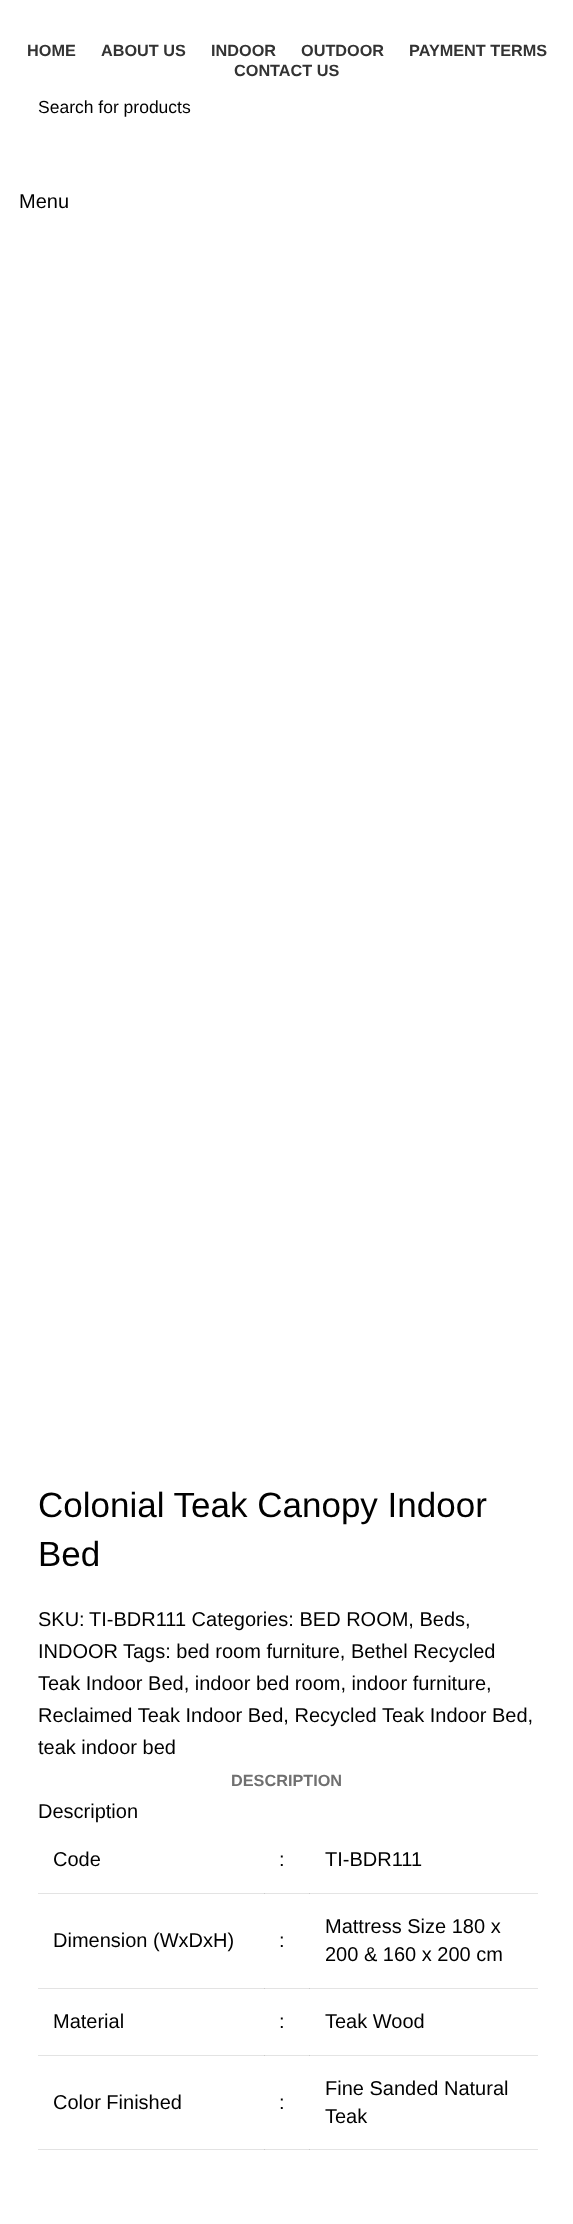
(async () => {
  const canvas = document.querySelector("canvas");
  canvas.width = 573;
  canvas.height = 2224;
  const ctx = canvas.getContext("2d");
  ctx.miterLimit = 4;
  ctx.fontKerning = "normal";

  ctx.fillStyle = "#ffffff";
  ctx.fillRect(0, 0, 573, 2224);
  for (const [x, y, w, h, color] of [
    [38, 1893, 272, 1, "#e3e3e3"],
    [264, 1893, 1, 1, "#cacaca"],
    [38, 1988, 272, 1, "#e3e3e3"],
    [264, 1988, 1, 1, "#cacaca"],
    [38, 2055, 272, 1, "#e3e3e3"],
    [264, 2055, 1, 1, "#cacaca"],
    [38, 2149, 272, 1, "#e3e3e3"],
    [264, 2149, 1, 1, "#cacaca"],
    [309, 1893, 229, 1, "#e4e4e4"],
    [309, 1893, 1, 1, "#cbcbcb"],
    [309, 1988, 229, 1, "#e4e4e4"],
    [309, 1988, 1, 1, "#cbcbcb"],
    [309, 2055, 229, 1, "#e4e4e4"],
    [309, 2055, 1, 1, "#cbcbcb"],
    [309, 2149, 229, 1, "#e4e4e4"],
    [309, 2149, 1, 1, "#cbcbcb"],
  ]) {
    ctx.fillStyle = color;
    ctx.fillRect(x, y, w, h);
  }
  ctx.font = "bold 16.25px Liberation Sans";
  ctx.fillStyle = "#333333";
  for (const [text, x, y] of [
    ["HOME", 27, 56],
    ["ABOUT US", 101, 56],
    ["INDOOR", 211, 56],
    ["OUTDOOR", 301, 56],
    ["PAYMENT TERMS", 409, 56],
    ["CONTACT US", 234, 76],
  ]) {
    ctx.fillText(text, x, y);
  }
  ctx.font = "17.5px Liberation Sans";
  ctx.fillStyle = "#000000";
  ctx.fillText("Search for products", 38, 113);
  ctx.font = "20px Liberation Sans";
  ctx.fillText("Menu", 19, 208);
  ctx.font = "35px Liberation Sans";
  ctx.fillText("Colonial Teak Canopy Indoor", 38, 1517);
  ctx.fillText("Bed", 38, 1566);
  ctx.font = "20px Liberation Sans";
  for (const [text, x, y] of [
    ["SKU:", 38, 1626],
    ["TI-BDR111 Categories: BED ROOM, Beds,", 89, 1626],
    ["INDOOR", 38, 1658],
    ["Tags: bed room furniture, Bethel Recycled", 123, 1658],
    ["Teak Indoor Bed, indoor bed room, indoor furniture,", 38, 1690],
    ["Reclaimed Teak Indoor Bed, Recycled Teak Indoor Bed,", 38, 1722],
    ["teak indoor bed", 38, 1754],
  ]) {
    ctx.fillText(text, x, y);
  }
  ctx.font = "bold 16.25px Liberation Sans";
  ctx.fillStyle = "#707070";
  ctx.fillText("DESCRIPTION", 231, 1786);
  ctx.font = "20px Liberation Sans";
  ctx.fillStyle = "#000000";
  for (const [text, x, y] of [
    ["Description", 38, 1818],
    ["Code", 53, 1866],
    [":", 279, 1866],
    ["TI-BDR111", 325, 1866],
    ["Dimension (WxDxH)", 53, 1947],
    [":", 279, 1947],
    ["Mattress Size 180 x", 325, 1933],
    ["200 & 160 x 200 cm", 325, 1961],
    ["Material", 53, 2028],
    [":", 279, 2028],
    ["Teak Wood", 325, 2028],
    ["Color Finished", 53, 2109],
    [":", 279, 2109],
    ["Fine Sanded Natural", 325, 2095],
    ["Teak", 325, 2123],
  ]) {
    ctx.fillText(text, x, y);
  }
})();
